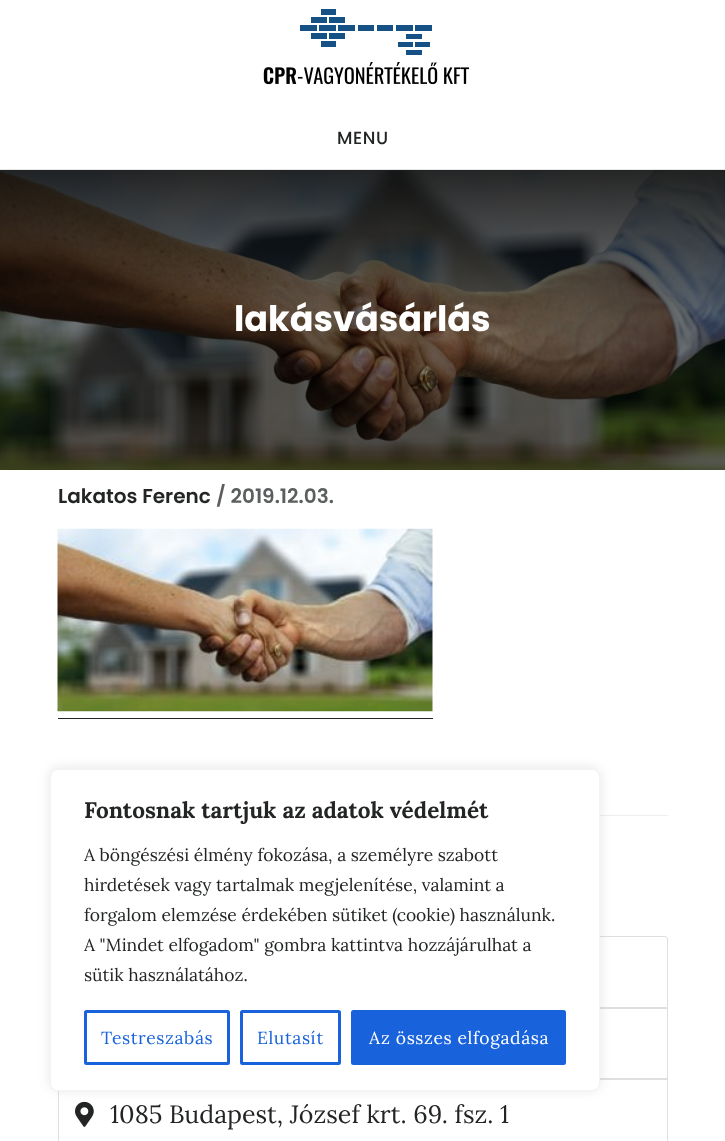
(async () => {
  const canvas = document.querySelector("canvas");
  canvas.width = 725;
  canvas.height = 1141;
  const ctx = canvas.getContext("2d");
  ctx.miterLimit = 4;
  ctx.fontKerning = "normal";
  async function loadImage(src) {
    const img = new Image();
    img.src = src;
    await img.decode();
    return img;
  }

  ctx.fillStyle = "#ffffff";
  ctx.fillRect(0, 0, 725, 1141);
  ctx.fillStyle = "#e6e6e6";
  ctx.fillRect(0, 169, 725, 1);
  ctx.drawImage(await loadImage("img/1.png"), 263, 9, 207, 76);
  ctx.drawImage(await loadImage("img/2.png"), 0, 170, 725, 300);
  ctx.fillStyle = "#eeeeee";
  ctx.fillRect(600, 815, 68, 1);
  ctx.drawImage(await loadImage("img/3.png"), 57, 528, 376, 184);
  ctx.fillStyle = "#232525";
  ctx.fillRect(58, 718, 375, 1);
  ctx.beginPath();
  ctx.roundRect(58.5, 936.5, 609, 71, [2.5, 2.5, 0, 0]);
  ctx.strokeStyle = "#dfdfdf";
  ctx.stroke();
  ctx.strokeRect(58.5, 1008.5, 609, 70);
  ctx.strokeRect(58.5, 1079.5, 609, 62);
  ctx.drawImage(await loadImage("img/4.png"), 75, 1101, 19, 26);
  ctx.fillStyle = "rgba(172, 171, 171, 0.3)";
  ctx.filter = "blur(6px)";
  ctx.beginPath();
  ctx.roundRect(50, 768, 550, 322, 8);
  ctx.fill();
  ctx.filter = "none";
  ctx.fillStyle = "#ffffff";
  ctx.beginPath();
  ctx.roundRect(50.5, 769.5, 549, 321, 7.5);
  ctx.fill();
  ctx.strokeStyle = "#f4f4f4";
  ctx.stroke();
  ctx.beginPath();
  ctx.roundRect(85.5, 1011.5, 143, 52, 1);
  ctx.strokeStyle = "#1863dc";
  ctx.lineWidth = 3;
  ctx.stroke();
  ctx.beginPath();
  ctx.roundRect(241.5, 1011.5, 98, 52, 1);
  ctx.stroke();
  ctx.fillStyle = "#1863dc";
  ctx.beginPath();
  ctx.roundRect(352.5, 1011.5, 212, 52, 1);
  ctx.fill();
  ctx.stroke();
  ctx.letterSpacing = "0.6px";
  ctx.font = "500 17.5px Poppins";
  ctx.fillStyle = "#232525";
  ctx.fillText("MENU", 337, 144);
  ctx.letterSpacing = "0px";
  ctx.font = "bold 35px Poppins";
  ctx.fillStyle = "#ffffff";
  ctx.fillText("lakásvásárlás", 234, 331);
  ctx.font = "600 20px Poppins";
  ctx.fillStyle = "#232525";
  ctx.fillText("Lakatos Ferenc", 58, 503);
  ctx.fillStyle = "#5b5e5e";
  ctx.fillText("/ 2019.12.03.", 216, 503);
  ctx.font = "25px Lora";
  ctx.fillStyle = "#232525";
  ctx.fillText("1085 Budapest, József krt. 69. fsz. 1", 110, 1123);
  ctx.font = "bold 22.5px Lora";
  ctx.fillText("Fontosnak tartjuk az adatok védelmét", 84, 818);
  ctx.font = "17.5px Lora";
  for (const [text, x, y] of [
    ["A böngészési élmény fokozása, a személyre szabott", 84, 861],
    ["hirdetések vagy tartalmak megjelenítése, valamint a", 84, 891],
    ["forgalom elemzése érdekében sütiket (cookie) használunk.", 84, 921],
    ["A \"Mindet elfogadom\" gombra kattintva hozzájárulhat a", 84, 951],
    ["sütik használatához.", 84, 981],
  ]) {
    ctx.fillText(text, x, y);
  }
  ctx.letterSpacing = "0.6px";
  ctx.fillStyle = "#1863dc";
  ctx.fillText("Testreszabás", 101, 1044);
  ctx.fillText("Elutasít", 257, 1044);
  ctx.fillStyle = "#ffffff";
  ctx.fillText("Az összes elfogadása", 369, 1044);
})();
